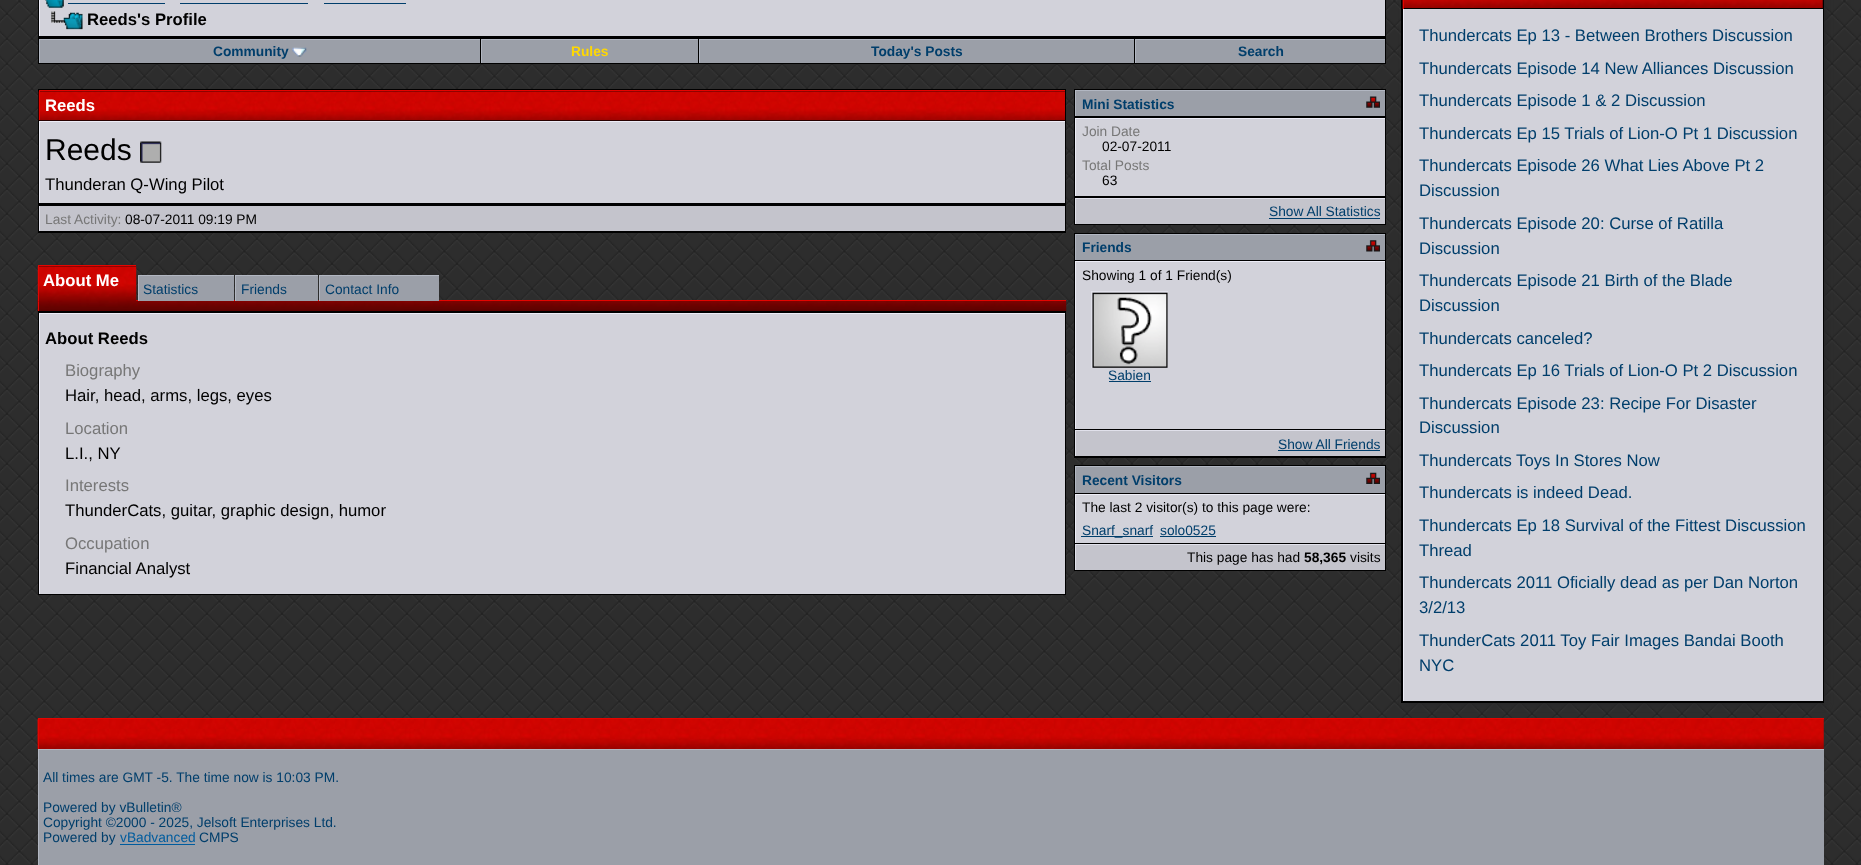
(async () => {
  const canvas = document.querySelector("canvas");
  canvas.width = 1861;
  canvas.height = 865;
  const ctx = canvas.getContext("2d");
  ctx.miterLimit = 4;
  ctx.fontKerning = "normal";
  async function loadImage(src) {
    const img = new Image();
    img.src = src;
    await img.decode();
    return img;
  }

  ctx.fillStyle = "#ffffff";
  ctx.fillRect(0, 0, 1861, 865);
  ctx.drawImage(await loadImage("img/1.png"), 0, 0, 1861, 865);
  for (const [x, y, w, h, color] of [
    [38, 0, 1348, 64, "#000000"],
    [40, 0, 1345, 36, "#d2d2da"],
    [39, 0, 1, 36, "#ededf7"],
  ]) {
    ctx.fillStyle = color;
    ctx.fillRect(x, y, w, h);
  }
  ctx.drawImage(await loadImage("img/2.png"), 45, 0, 19, 8);
  for (const [x, y, w, h, color] of [
    [68, 3, 97, 1, "#003e6b"],
    [180, 3, 128, 1, "#003e6b"],
    [324, 3, 82, 1, "#003e6b"],
  ]) {
    ctx.fillStyle = color;
    ctx.fillRect(x, y, w, h);
  }
  ctx.drawImage(await loadImage("img/3.png"), 51, 11, 32, 19);
  for (const [x, y, w, h, color] of [
    [40, 40, 440, 23, "#9b9fa8"],
    [39, 39, 441, 1, "#b2b7c2"],
    [39, 39, 1, 24, "#b2b7c2"],
  ]) {
    ctx.fillStyle = color;
    ctx.fillRect(x, y, w, h);
  }
  ctx.drawImage(await loadImage("img/4.png"), 292, 47, 15, 10);
  for (const [x, y, w, h, color] of [
    [482, 40, 216, 23, "#9b9fa8"],
    [481, 39, 217, 1, "#b2b7c2"],
    [481, 39, 1, 24, "#b2b7c2"],
    [700, 40, 434, 23, "#9b9fa8"],
    [699, 39, 435, 1, "#b2b7c2"],
    [699, 39, 1, 24, "#b2b7c2"],
    [1136, 40, 249, 23, "#9b9fa8"],
    [1135, 39, 250, 1, "#b2b7c2"],
    [1135, 39, 1, 24, "#b2b7c2"],
    [38, 89, 1028, 144, "#000000"],
    [40, 91, 1025, 1, "#500100"],
  ]) {
    ctx.fillStyle = color;
    ctx.fillRect(x, y, w, h);
  }
  ctx.drawImage(await loadImage("img/5.png"), 38, 91, 1027, 30);
  for (const [x, y, w, h, color] of [
    [39, 90, 1026, 1, "#e50400"],
    [39, 90, 1, 30, "#e50400"],
    [40, 122, 1025, 81, "#d2d2da"],
    [39, 121, 1026, 1, "#ededf7"],
    [39, 121, 1, 82, "#ededf7"],
  ]) {
    ctx.fillStyle = color;
    ctx.fillRect(x, y, w, h);
  }
  ctx.drawImage(await loadImage("img/6.png"), 140, 141, 22, 22);
  for (const [x, y, w, h, color] of [
    [40, 206, 1025, 25, "#c4c4cc"],
    [39, 206, 1, 25, "#e1e1eb"],
    [39, 266, 97, 1, "#500100"],
  ]) {
    ctx.fillStyle = color;
    ctx.fillRect(x, y, w, h);
  }
  ctx.drawImage(await loadImage("img/8.png"), 37, 300, 1030, 12);
  ctx.fillStyle = "#e50400";
  ctx.fillRect(136, 300, 930, 1);
  ctx.fillRect(38, 300, 1, 11);
  ctx.drawImage(await loadImage("img/7.png"), 37, 266, 100, 36);
  for (const [x, y, w, h, color] of [
    [38, 265, 98, 1, "#e50400"],
    [38, 265, 1, 36, "#e50400"],
    [139, 276, 95, 25, "#9b9fa8"],
    [138, 275, 96, 1, "#b2b7c2"],
    [138, 275, 1, 26, "#b2b7c2"],
    [236, 276, 82, 25, "#9b9fa8"],
    [235, 275, 83, 1, "#b2b7c2"],
    [235, 275, 1, 26, "#b2b7c2"],
    [320, 276, 119, 25, "#9b9fa8"],
    [319, 275, 120, 1, "#b2b7c2"],
    [319, 275, 1, 26, "#b2b7c2"],
    [38, 311, 1028, 284, "#000000"],
    [40, 314, 1025, 280, "#d2d2da"],
    [39, 313, 1026, 1, "#ededf7"],
    [39, 313, 1, 281, "#ededf7"],
    [1074, 89, 312, 136, "#000000"],
    [1076, 91, 309, 25, "#9b9fa8"],
    [1075, 90, 310, 1, "#b2b7c2"],
    [1075, 90, 1, 26, "#b2b7c2"],
  ]) {
    ctx.fillStyle = color;
    ctx.fillRect(x, y, w, h);
  }
  ctx.drawImage(await loadImage("img/9.png"), 1366, 96, 14, 12);
  for (const [x, y, w, h, color] of [
    [1076, 119, 309, 77, "#d2d2da"],
    [1075, 118, 310, 1, "#ededf7"],
    [1075, 118, 1, 78, "#ededf7"],
    [1076, 199, 309, 25, "#c4c4cc"],
    [1075, 198, 310, 1, "#e1e1eb"],
    [1075, 198, 1, 26, "#e1e1eb"],
    [1269, 218, 111, 1, "#003e6b"],
    [1074, 233, 312, 225, "#000000"],
    [1076, 235, 309, 25, "#9b9fa8"],
    [1075, 234, 310, 1, "#b2b7c2"],
    [1075, 234, 1, 26, "#b2b7c2"],
  ]) {
    ctx.fillStyle = color;
    ctx.fillRect(x, y, w, h);
  }
  ctx.drawImage(await loadImage("img/10.png"), 1366, 240, 14, 12);
  for (const [x, y, w, h, color] of [
    [1076, 262, 309, 167, "#d2d2da"],
    [1075, 261, 310, 1, "#ededf7"],
    [1075, 261, 1, 168, "#ededf7"],
    [1091, 291, 77, 1, "#e1e1eb"],
    [1091, 291, 1, 77, "#e1e1eb"],
    [1093, 293, 75, 75, "#c4c4cc"],
  ]) {
    ctx.fillStyle = color;
    ctx.fillRect(x, y, w, h);
  }
  ctx.drawImage(await loadImage("img/11.png"), 1092, 292, 76, 76);
  for (const [x, y, w, h, color] of [
    [1109, 381, 42, 1, "#003e6b"],
    [1076, 431, 309, 25, "#c4c4cc"],
    [1075, 430, 310, 1, "#e1e1eb"],
    [1075, 430, 1, 26, "#e1e1eb"],
    [1278, 450, 102, 1, "#003e6b"],
    [1074, 465, 312, 106, "#000000"],
    [1076, 467, 309, 26, "#9b9fa8"],
    [1075, 466, 310, 1, "#b2b7c2"],
    [1075, 466, 1, 27, "#b2b7c2"],
  ]) {
    ctx.fillStyle = color;
    ctx.fillRect(x, y, w, h);
  }
  ctx.drawImage(await loadImage("img/12.png"), 1366, 472, 14, 12);
  for (const [x, y, w, h, color] of [
    [1076, 495, 309, 48, "#d2d2da"],
    [1075, 494, 310, 1, "#ededf7"],
    [1075, 494, 1, 49, "#ededf7"],
    [1081, 536, 72, 1, "#003e6b"],
    [1160, 536, 56, 1, "#003e6b"],
    [1076, 545, 309, 25, "#c4c4cc"],
    [1075, 544, 310, 1, "#e1e1eb"],
    [1075, 544, 1, 26, "#e1e1eb"],
  ]) {
    ctx.fillStyle = color;
    ctx.fillRect(x, y, w, h);
  }
  ctx.fillStyle = "#29292b";
  ctx.filter = "blur(3px)";
  ctx.beginPath();
  ctx.rect(1406, -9, 420, 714);
  ctx.fill();
  ctx.filter = "none";
  ctx.fillStyle = "#000000";
  ctx.fillRect(1401, 0, 423, 703);
  ctx.fillStyle = "#500100";
  ctx.fillRect(1822, 0, 1, 8);
  ctx.drawImage(await loadImage("img/13.png"), 1402, 0, 421, 9);
  for (const [x, y, w, h, color] of [
    [1403, 8, 420, 1, "#000000"],
    [1403, 0, 1, 9, "#e50400"],
    [1403, 9, 420, 7, "#d2d2da"],
    [1403, 9, 1, 692, "#ededf7"],
    [1404, 16, 419, 685, "#d2d2da"],
  ]) {
    ctx.fillStyle = color;
    ctx.fillRect(x, y, w, h);
  }
  ctx.drawImage(await loadImage("img/14.png"), 37, 719, 1787, 30);
  for (const [x, y, w, h, color] of [
    [38, 718, 1786, 1, "#e50400"],
    [38, 718, 1, 31, "#e50400"],
    [39, 750, 1785, 115, "#9b9fa8"],
    [38, 749, 1786, 1, "#b2b7c2"],
    [38, 749, 1, 116, "#b2b7c2"],
    [120, 844, 75, 1, "#005c9e"],
  ]) {
    ctx.fillStyle = color;
    ctx.fillRect(x, y, w, h);
  }
  ctx.font = "bold 16.7px Liberation Sans";
  ctx.fillStyle = "#000000";
  ctx.fillText("Reeds's Profile", 87, 25);
  ctx.font = "bold 13.75px Liberation Sans";
  ctx.fillStyle = "#003e6b";
  ctx.fillText("Community", 213, 56);
  ctx.fillStyle = "#ffd800";
  ctx.fillText("Rules", 571, 56);
  ctx.fillStyle = "#003e6b";
  ctx.fillText("Today's Posts", 871, 56);
  ctx.fillText("Search", 1238, 56);
  ctx.font = "bold 16.7px Liberation Sans";
  ctx.fillStyle = "#ffffff";
  ctx.fillText("Reeds", 45, 111);
  ctx.font = "30px Liberation Sans";
  ctx.fillStyle = "#000000";
  ctx.fillText("Reeds", 45, 160);
  ctx.font = "16.7px Liberation Sans";
  ctx.fillText("Thunderan Q-Wing Pilot", 45, 190);
  ctx.font = "13.75px Liberation Sans";
  ctx.fillStyle = "#777777";
  ctx.fillText("Last Activity:", 45, 224);
  ctx.fillStyle = "#000000";
  ctx.fillText("08-07-2011 09:19 PM", 125, 224);
  ctx.font = "bold 16.7px Liberation Sans";
  ctx.fillStyle = "#ffffff";
  ctx.fillText("About Me", 43, 286);
  ctx.font = "13.75px Liberation Sans";
  ctx.fillStyle = "#003e6b";
  for (const [text, x, y] of [
    ["Statistics", 143, 294],
    ["Friends", 241, 294],
    ["Contact Info", 325, 294],
  ]) {
    ctx.fillText(text, x, y);
  }
  ctx.font = "bold 16.7px Liberation Sans";
  ctx.fillStyle = "#000000";
  ctx.fillText("About Reeds", 45, 344);
  ctx.font = "16.7px Liberation Sans";
  ctx.fillStyle = "#777777";
  ctx.fillText("Biography", 65, 376);
  ctx.fillStyle = "#000000";
  ctx.fillText("Hair, head, arms, legs, eyes", 65, 401);
  ctx.fillStyle = "#777777";
  ctx.fillText("Location", 65, 434);
  ctx.fillStyle = "#000000";
  ctx.fillText("L.I., NY", 65, 459);
  ctx.fillStyle = "#777777";
  ctx.fillText("Interests", 65, 491);
  ctx.fillStyle = "#000000";
  ctx.fillText("ThunderCats, guitar, graphic design, humor", 65, 516);
  ctx.fillStyle = "#777777";
  ctx.fillText("Occupation", 65, 549);
  ctx.fillStyle = "#000000";
  ctx.fillText("Financial Analyst", 65, 574);
  ctx.font = "bold 13.75px Liberation Sans";
  ctx.fillStyle = "#003e6b";
  ctx.fillText("Mini Statistics", 1082, 109);
  ctx.font = "13.75px Liberation Sans";
  ctx.fillStyle = "#777777";
  ctx.fillText("Join Date", 1082, 136);
  ctx.fillStyle = "#000000";
  ctx.fillText("02-07-2011", 1102, 151);
  ctx.fillStyle = "#777777";
  ctx.fillText("Total Posts", 1082, 170);
  ctx.fillStyle = "#000000";
  ctx.fillText("63", 1102, 185);
  ctx.fillStyle = "#003e6b";
  ctx.fillText("Show All Statistics", 1269, 216);
  ctx.font = "bold 13.75px Liberation Sans";
  ctx.fillText("Friends", 1082, 252);
  ctx.font = "13.75px Liberation Sans";
  ctx.fillStyle = "#000000";
  ctx.fillText("Showing 1 of 1 Friend(s)", 1082, 280);
  ctx.fillStyle = "#003e6b";
  ctx.fillText("Sabien", 1108, 380);
  ctx.fillText("Show All Friends", 1278, 449);
  ctx.font = "bold 13.75px Liberation Sans";
  ctx.fillText("Recent Visitors", 1082, 485);
  ctx.font = "13.75px Liberation Sans";
  ctx.fillStyle = "#000000";
  ctx.fillText("The last 2 visitor(s) to this page were:", 1082, 512);
  ctx.fillStyle = "#003e6b";
  ctx.fillText("Snarf_snarf", 1082, 535);
  ctx.fillText("solo0525", 1160, 535);
  ctx.fillStyle = "#000000";
  ctx.fillText("This page has had", 1187, 562);
  ctx.font = "bold 13.75px Liberation Sans";
  ctx.fillText("58,365", 1304, 562);
  ctx.font = "13.75px Liberation Sans";
  ctx.fillText("visits", 1350, 562);
  ctx.font = "16.7px Liberation Sans";
  ctx.fillStyle = "#003e6b";
  for (const [text, x, y] of [
    ["Thundercats Ep 13 - Between Brothers Discussion", 1419, 41],
    ["Thundercats Episode 14 New Alliances Discussion", 1419, 74],
    ["Thundercats Episode 1 & 2 Discussion", 1419, 106],
    ["Thundercats Ep 15 Trials of Lion-O Pt 1 Discussion", 1419, 139],
    ["Thundercats Episode 26 What Lies Above Pt 2", 1419, 171],
    ["Discussion", 1419, 196],
    ["Thundercats Episode 20: Curse of Ratilla", 1419, 229],
    ["Discussion", 1419, 254],
    ["Thundercats Episode 21 Birth of the Blade", 1419, 286],
    ["Discussion", 1419, 311],
    ["Thundercats canceled?", 1419, 344],
    ["Thundercats Ep 16 Trials of Lion-O Pt 2 Discussion", 1419, 376],
    ["Thundercats Episode 23: Recipe For Disaster", 1419, 409],
    ["Discussion", 1419, 433],
    ["Thundercats Toys In Stores Now", 1419, 466],
    ["Thundercats is indeed Dead.", 1419, 498],
    ["Thundercats Ep 18 Survival of the Fittest Discussion", 1419, 531],
    ["Thread", 1419, 556],
    ["Thundercats 2011 Oficially dead as per Dan Norton", 1419, 588],
    ["3/2/13", 1419, 613],
    ["ThunderCats 2011 Toy Fair Images Bandai Booth", 1419, 646],
    ["NYC", 1419, 671],
  ]) {
    ctx.fillText(text, x, y);
  }
  ctx.font = "13.75px Liberation Sans";
  for (const [text, x, y] of [
    ["All times are GMT -5. The time now is 10:03 PM.", 43, 782],
    ["Powered by vBulletin®", 43, 812],
    ["Copyright ©2000 - 2025, Jelsoft Enterprises Ltd.", 43, 827],
    ["Powered by", 43, 842],
  ]) {
    ctx.fillText(text, x, y);
  }
  ctx.fillStyle = "#005c9e";
  ctx.fillText("vBadvanced", 120, 842);
  ctx.fillStyle = "#003e6b";
  ctx.fillText("CMPS", 199, 842);
})();
